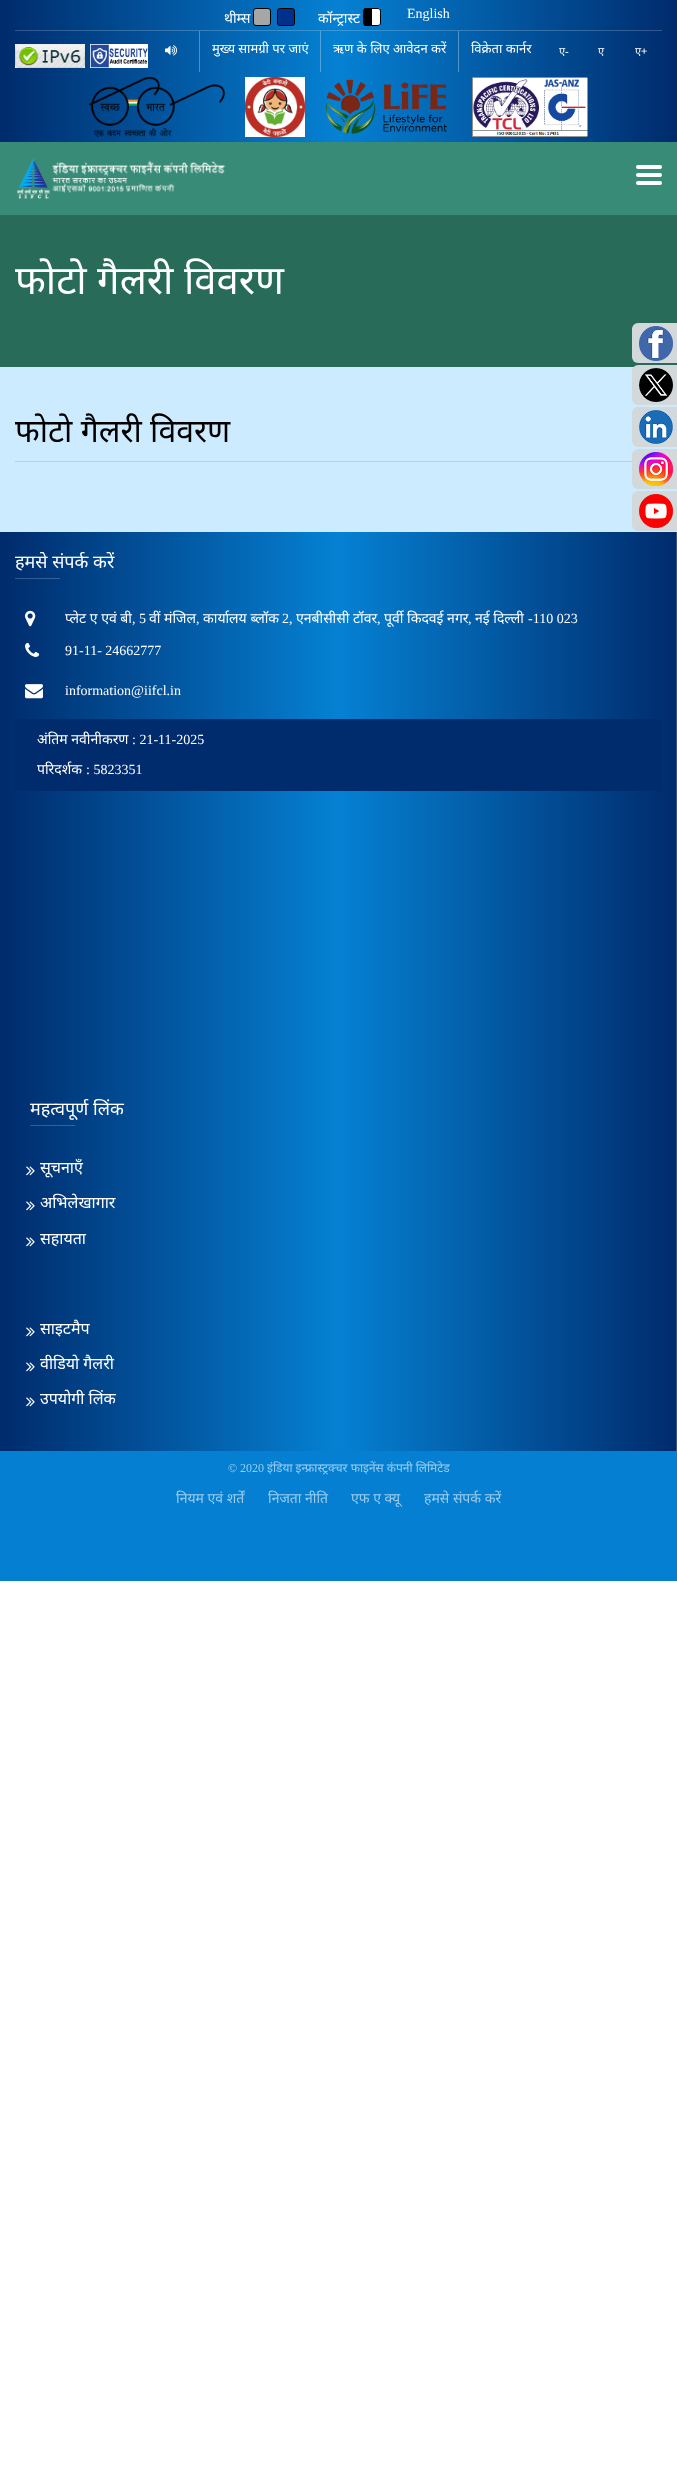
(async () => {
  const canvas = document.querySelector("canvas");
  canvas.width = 677;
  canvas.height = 2465;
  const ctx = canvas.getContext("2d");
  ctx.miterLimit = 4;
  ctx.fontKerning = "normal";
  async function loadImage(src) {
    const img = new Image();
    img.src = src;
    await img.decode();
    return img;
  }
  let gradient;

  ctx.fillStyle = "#ffffff";
  ctx.fillRect(0, 0, 677, 2465);
  gradient = ctx.createLinearGradient(0, 36, 677, 36);
  gradient.addColorStop(0, "#002b6c");
  gradient.addColorStop(0.5, "#0581d3");
  gradient.addColorStop(1, "#002b6c");
  ctx.fillStyle = gradient;
  ctx.fillRect(0, 0, 677, 72);
  gradient = ctx.createLinearGradient(0, 36, 677, 36);
  gradient.addColorStop(0, "#335589");
  gradient.addColorStop(0.5, "#379adc");
  gradient.addColorStop(1, "#335589");
  ctx.fillStyle = gradient;
  ctx.fillRect(15, 30, 647, 1);
  ctx.fillStyle = "#a6a6a6";
  ctx.beginPath();
  ctx.roundRect(253.5, 8.5, 17, 17, 2.5);
  ctx.fill();
  ctx.strokeStyle = "#000000";
  ctx.stroke();
  ctx.fillStyle = "#01308c";
  ctx.beginPath();
  ctx.roundRect(277.5, 8.5, 17, 17, 2.5);
  ctx.fill();
  ctx.stroke();
  ctx.save();
  ctx.beginPath();
  ctx.roundRect(363, 8, 18, 18, 3);
  ctx.clip();
  ctx.fillStyle = "#000000";
  ctx.fillRect(364, 8, 8, 18);
  ctx.fillStyle = "#ffffff";
  ctx.fillRect(372, 8, 8, 18);
  ctx.restore();
  ctx.beginPath();
  ctx.roundRect(363.5, 8.5, 17, 17, 2.5);
  ctx.stroke();
  ctx.drawImage(await loadImage("img/1.png"), 15, 44, 70, 24);
  ctx.drawImage(await loadImage("img/2.png"), 90, 44, 58, 24);
  ctx.drawImage(await loadImage("img/3.png"), 165, 45, 13, 11);
  for (const [x, y, w, h, color] of [
    [199, 31, 1, 41, "#4f8ec3"],
    [320, 31, 1, 41, "#50a3dd"],
    [458, 31, 1, 41, "#4f92c6"],
  ]) {
    ctx.fillStyle = color;
    ctx.fillRect(x, y, w, h);
  }
  gradient = ctx.createLinearGradient(0, 107, 677, 107);
  gradient.addColorStop(0, "#002b6c");
  gradient.addColorStop(0.5, "#0581d3");
  gradient.addColorStop(1, "#002b6c");
  ctx.fillStyle = gradient;
  ctx.fillRect(0, 72, 677, 70);
  ctx.drawImage(await loadImage("img/4.png"), 89, 77, 136, 60);
  ctx.drawImage(await loadImage("img/5.png"), 245, 77, 60, 60);
  ctx.drawImage(await loadImage("img/6.png"), 325, 79, 122, 55);
  ctx.drawImage(await loadImage("img/7.png"), 472, 77, 116, 60);
  ctx.fillStyle = "#388c77";
  ctx.fillRect(0, 142, 677, 73);
  ctx.drawImage(await loadImage("img/8.png"), 17, 159, 209, 40);
  ctx.fillStyle = "#ffffff";
  ctx.beginPath();
  ctx.roundRect(636, 173, 26, 4, 2);
  ctx.fill();
  ctx.beginPath();
  ctx.roundRect(636, 165, 26, 4, 2);
  ctx.fill();
  ctx.beginPath();
  ctx.roundRect(636, 181, 26, 4, 2);
  ctx.fill();
  for (const [x, y, w, h, color] of [
    [0, 367, 677, 165, "#cdebff"],
    [0, 215, 677, 152, "#296b59"],
    [15, 461, 617, 1, "#cccccc"],
  ]) {
    ctx.fillStyle = color;
    ctx.fillRect(x, y, w, h);
  }
  gradient = ctx.createLinearGradient(0, 833, 677, 833);
  gradient.addColorStop(0, "#002b6c");
  gradient.addColorStop(0.5, "#0581d3");
  gradient.addColorStop(1, "#002b6c");
  ctx.fillStyle = gradient;
  ctx.fillRect(0, 532, 676, 919);
  gradient = ctx.createLinearGradient(0, 833, 677, 833);
  gradient.addColorStop(0, "#335589");
  gradient.addColorStop(0.5, "#379adc");
  gradient.addColorStop(1, "#335589");
  ctx.fillStyle = gradient;
  ctx.fillRect(30, 1125, 45, 1);
  ctx.fillRect(15, 578, 45, 1);
  ctx.fillStyle = "#335589";
  ctx.fillRect(676, 532, 1, 919);
  ctx.drawImage(await loadImage("img/9.png"), 25, 610, 11, 17);
  ctx.drawImage(await loadImage("img/10.png"), 25, 642, 15, 15);
  ctx.drawImage(await loadImage("img/11.png"), 25, 684, 18, 15);
  ctx.fillStyle = "#002b6c";
  ctx.fillRect(15, 719, 646, 72);
  ctx.drawImage(await loadImage("img/13.png"), 26, 1201, 9, 10);
  ctx.drawImage(await loadImage("img/13.png"), 26, 1237, 9, 10);
  ctx.drawImage(await loadImage("img/13.png"), 26, 1327, 9, 10);
  ctx.drawImage(await loadImage("img/13.png"), 26, 1362, 9, 10);
  ctx.drawImage(await loadImage("img/13.png"), 26, 1397, 9, 10);
  ctx.fillStyle = "#057fd1";
  ctx.fillRect(0, 1451, 677, 130);
  ctx.fillStyle = "#d3d8db";
  ctx.beginPath();
  ctx.roundRect(632, 323, 45, 40, [6, 0, 0, 6]);
  ctx.fill();
  ctx.drawImage(await loadImage("img/14.png"), 639, 326, 34, 35);
  ctx.beginPath();
  ctx.roundRect(632, 365, 45, 40, [6, 0, 0, 6]);
  ctx.fill();
  ctx.drawImage(await loadImage("img/15.png"), 639, 368, 34, 34);
  ctx.beginPath();
  ctx.roundRect(632, 407, 45, 40, [6, 0, 0, 6]);
  ctx.fill();
  ctx.drawImage(await loadImage("img/16.png"), 639, 410, 34, 34);
  ctx.beginPath();
  ctx.roundRect(632, 449, 45, 40, [6, 0, 0, 6]);
  ctx.fill();
  ctx.drawImage(await loadImage("img/17.png"), 639, 452, 34, 34);
  ctx.beginPath();
  ctx.roundRect(632, 491, 45, 40, [6, 0, 0, 6]);
  ctx.fill();
  ctx.drawImage(await loadImage("img/18.png"), 639, 494, 34, 34);
  ctx.font = "14px Noto Sans";
  ctx.fillStyle = "#ffffff";
  ctx.fillText("थीम्स", 224, 23);
  ctx.fillText("कॉन्ट्रास्ट", 318, 23);
  ctx.font = "14px Liberation Serif";
  ctx.fillText("English", 407, 18);
  ctx.font = "13px Noto Sans";
  for (const [text, x, y] of [
    ["मुख्य सामग्री पर जाएं", 212, 53],
    ["ऋण के लिए आवेदन करें", 333, 53],
    ["विक्रेता कार्नर", 471, 53],
  ]) {
    ctx.fillText(text, x, y);
  }
  ctx.font = "11px Noto Sans";
  ctx.fillText("ए", 559, 55);
  ctx.font = "bold 11px Liberation Serif";
  ctx.fillText("-", 565, 55);
  ctx.font = "11px Noto Sans";
  ctx.fillText("ए", 598, 55);
  ctx.fillText("ए+", 635, 55);
  ctx.font = "40px Noto Sans";
  ctx.fillText("फोटो गैलरी विवरण", 15, 294);
  ctx.font = "32px Noto Sans";
  ctx.fillStyle = "#000000";
  ctx.fillText("फोटो गैलरी विवरण", 15, 442);
  ctx.font = "18px Noto Sans";
  ctx.fillStyle = "#ffffff";
  ctx.fillText("हमसे संपर्क करें", 15, 568);
  ctx.font = "14px Noto Sans";
  ctx.fillText("प्लेट ए एवं बी", 65, 623);
  ctx.font = "14px Liberation Serif";
  ctx.fillText(", 5", 132, 623);
  ctx.font = "14px Noto Sans";
  ctx.fillText("वीं मंजिल", 149, 623);
  ctx.font = "14px Liberation Serif";
  ctx.fillText(",", 196, 623);
  ctx.font = "14px Noto Sans";
  ctx.fillText("कार्यालय ब्लॉक", 203, 623);
  ctx.font = "14px Liberation Serif";
  ctx.fillText("2,", 282, 623);
  ctx.font = "14px Noto Sans";
  ctx.fillText("एनबीसीसी टॉवर", 296, 623);
  ctx.font = "14px Liberation Serif";
  ctx.fillText(",", 377, 623);
  ctx.font = "14px Noto Sans";
  ctx.fillText("पूर्वी किदवई नगर", 384, 623);
  ctx.font = "14px Liberation Serif";
  ctx.fillText(",", 468, 623);
  ctx.font = "14px Noto Sans";
  ctx.fillText("नई दिल्ली", 475, 623);
  ctx.font = "14px Liberation Serif";
  for (const [text, x, y] of [
    ["-110 023", 528, 623],
    ["91-11- 24662777", 65, 655],
    ["information@iifcl.in", 65, 695],
  ]) {
    ctx.fillText(text, x, y);
  }
  ctx.font = "14px Noto Sans";
  ctx.fillText("अंतिम नवीनीकरण", 37, 744);
  ctx.font = "14px Liberation Serif";
  ctx.fillText(": 21-11-2025", 132, 744);
  ctx.font = "14px Noto Sans";
  ctx.fillText("परिदर्शक", 37, 774);
  ctx.font = "14px Liberation Serif";
  ctx.fillText(": 5823351", 86, 774);
  ctx.font = "18px Noto Sans";
  ctx.fillText("महत्वपूर्ण लिंक", 30, 1115);
  ctx.font = "16px Noto Sans";
  ctx.fillText("सूचनाएँ", 40, 1173);
  ctx.drawImage(await loadImage("img/12.png"), 26, 1166, 9, 10);
  for (const [text, x, y] of [
    ["अभिलेखागार", 40, 1208],
    ["सहायता", 40, 1244],
    ["साइटमैप", 40, 1334],
    ["वीडियो गैलरी", 40, 1369],
    ["उपयोगी लिंक", 40, 1404],
  ]) {
    ctx.fillText(text, x, y);
  }
  ctx.font = "12px Liberation Serif";
  ctx.fillStyle = "#9bcced";
  ctx.fillText("© 2020", 228, 1472);
  ctx.font = "12px Noto Sans";
  ctx.fillText("इंडिया इन्फ्रास्ट्रक्चर फाइनेंस कंपनी लिमिटेड", 267, 1472);
  ctx.font = "14px Noto Sans";
  for (const [text, x, y] of [
    ["नियम एवं शर्तें", 176, 1503],
    ["निजता नीति", 268, 1503],
    ["एफ ए क्यू", 351, 1503],
    ["हमसे संपर्क करें", 424, 1503],
  ]) {
    ctx.fillText(text, x, y);
  }
})();
